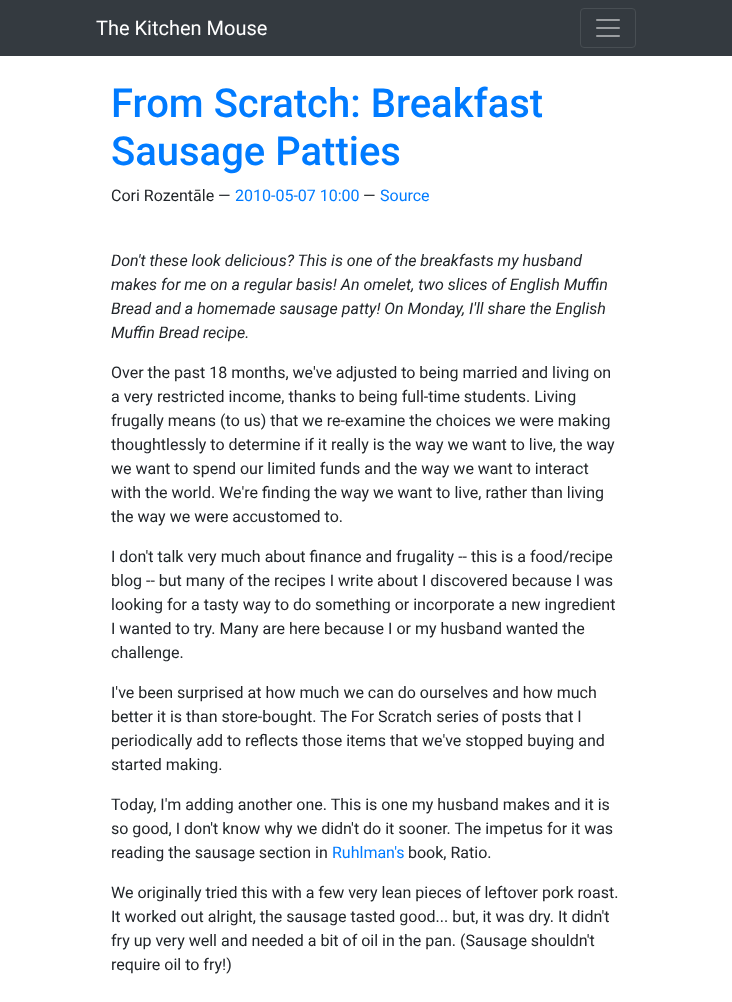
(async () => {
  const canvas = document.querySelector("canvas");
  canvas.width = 732;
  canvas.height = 1002;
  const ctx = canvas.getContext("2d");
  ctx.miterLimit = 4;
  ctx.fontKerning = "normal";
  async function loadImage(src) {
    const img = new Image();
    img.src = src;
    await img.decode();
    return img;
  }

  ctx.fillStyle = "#ffffff";
  ctx.fillRect(0, 0, 732, 1002);
  ctx.fillStyle = "#343a40";
  ctx.fillRect(0, 0, 732, 56);
  ctx.beginPath();
  ctx.roundRect(580.5, 8.5, 55, 39, 3.5);
  ctx.strokeStyle = "#484e53";
  ctx.stroke();
  ctx.drawImage(await loadImage("img/1.png"), 596, 19, 24, 18);
  ctx.font = "20px Roboto";
  ctx.fillStyle = "#ffffff";
  ctx.fillText("The Kitchen Mouse", 96, 35);
  ctx.font = "500 40px Roboto";
  ctx.fillStyle = "#007bff";
  ctx.fillText("From Scratch: Breakfast", 111, 117);
  ctx.fillText("Sausage Patties", 111, 165);
  ctx.font = "16px Roboto";
  ctx.fillStyle = "#212529";
  ctx.fillText("Cori Rozentāle —", 111, 201);
  ctx.fillStyle = "#007bff";
  ctx.fillText("2010-05-07 10:00", 235, 201);
  ctx.fillStyle = "#212529";
  ctx.fillText("—", 363, 201);
  ctx.fillStyle = "#007bff";
  ctx.fillText("Source", 380, 201);
  ctx.font = "italic 16px Roboto";
  ctx.fillStyle = "#212529";
  for (const [text, x, y] of [
    ["Don't these look delicious? This is one of the breakfasts my husband", 111, 266],
    ["makes for me on a regular basis! An omelet, two slices of English Muffin", 111, 290],
    ["Bread and a homemade sausage patty! On Monday, I'll share the English", 111, 314],
    ["Muffin Bread recipe.", 111, 338],
  ]) {
    ctx.fillText(text, x, y);
  }
  ctx.font = "16px Roboto";
  for (const [text, x, y] of [
    ["Over the past 18 months, we've adjusted to being married and living on", 111, 378],
    ["a very restricted income, thanks to being full-time students. Living", 111, 402],
    ["frugally means (to us) that we re-examine the choices we were making", 111, 426],
    ["thoughtlessly to determine if it really is the way we want to live, the way", 111, 450],
    ["we want to spend our limited funds and the way we want to interact", 111, 474],
    ["with the world. We're finding the way we want to live, rather than living", 111, 498],
    ["the way we were accustomed to.", 111, 522],
    ["I don't talk very much about finance and frugality -- this is a food/recipe", 111, 562],
    ["blog -- but many of the recipes I write about I discovered because I was", 111, 586],
    ["looking for a tasty way to do something or incorporate a new ingredient", 111, 610],
    ["I wanted to try. Many are here because I or my husband wanted the", 111, 634],
    ["challenge.", 111, 658],
    ["I've been surprised at how much we can do ourselves and how much", 111, 698],
    ["better it is than store-bought. The For Scratch series of posts that I", 111, 722],
    ["periodically add to reflects those items that we've stopped buying and", 111, 746],
    ["started making.", 111, 770],
    ["Today, I'm adding another one. This is one my husband makes and it is", 111, 810],
    ["so good, I don't know why we didn't do it sooner. The impetus for it was", 111, 834],
    ["reading the sausage section in", 111, 858],
  ]) {
    ctx.fillText(text, x, y);
  }
  ctx.fillStyle = "#007bff";
  ctx.fillText("Ruhlman's", 332, 858);
  ctx.fillStyle = "#212529";
  for (const [text, x, y] of [
    ["book, Ratio.", 408, 858],
    ["We originally tried this with a few very lean pieces of leftover pork roast.", 111, 898],
    ["It worked out alright, the sausage tasted good... but, it was dry. It didn't", 111, 922],
    ["fry up very well and needed a bit of oil in the pan. (Sausage shouldn't", 111, 946],
    ["require oil to fry!)", 111, 970],
  ]) {
    ctx.fillText(text, x, y);
  }
})();
